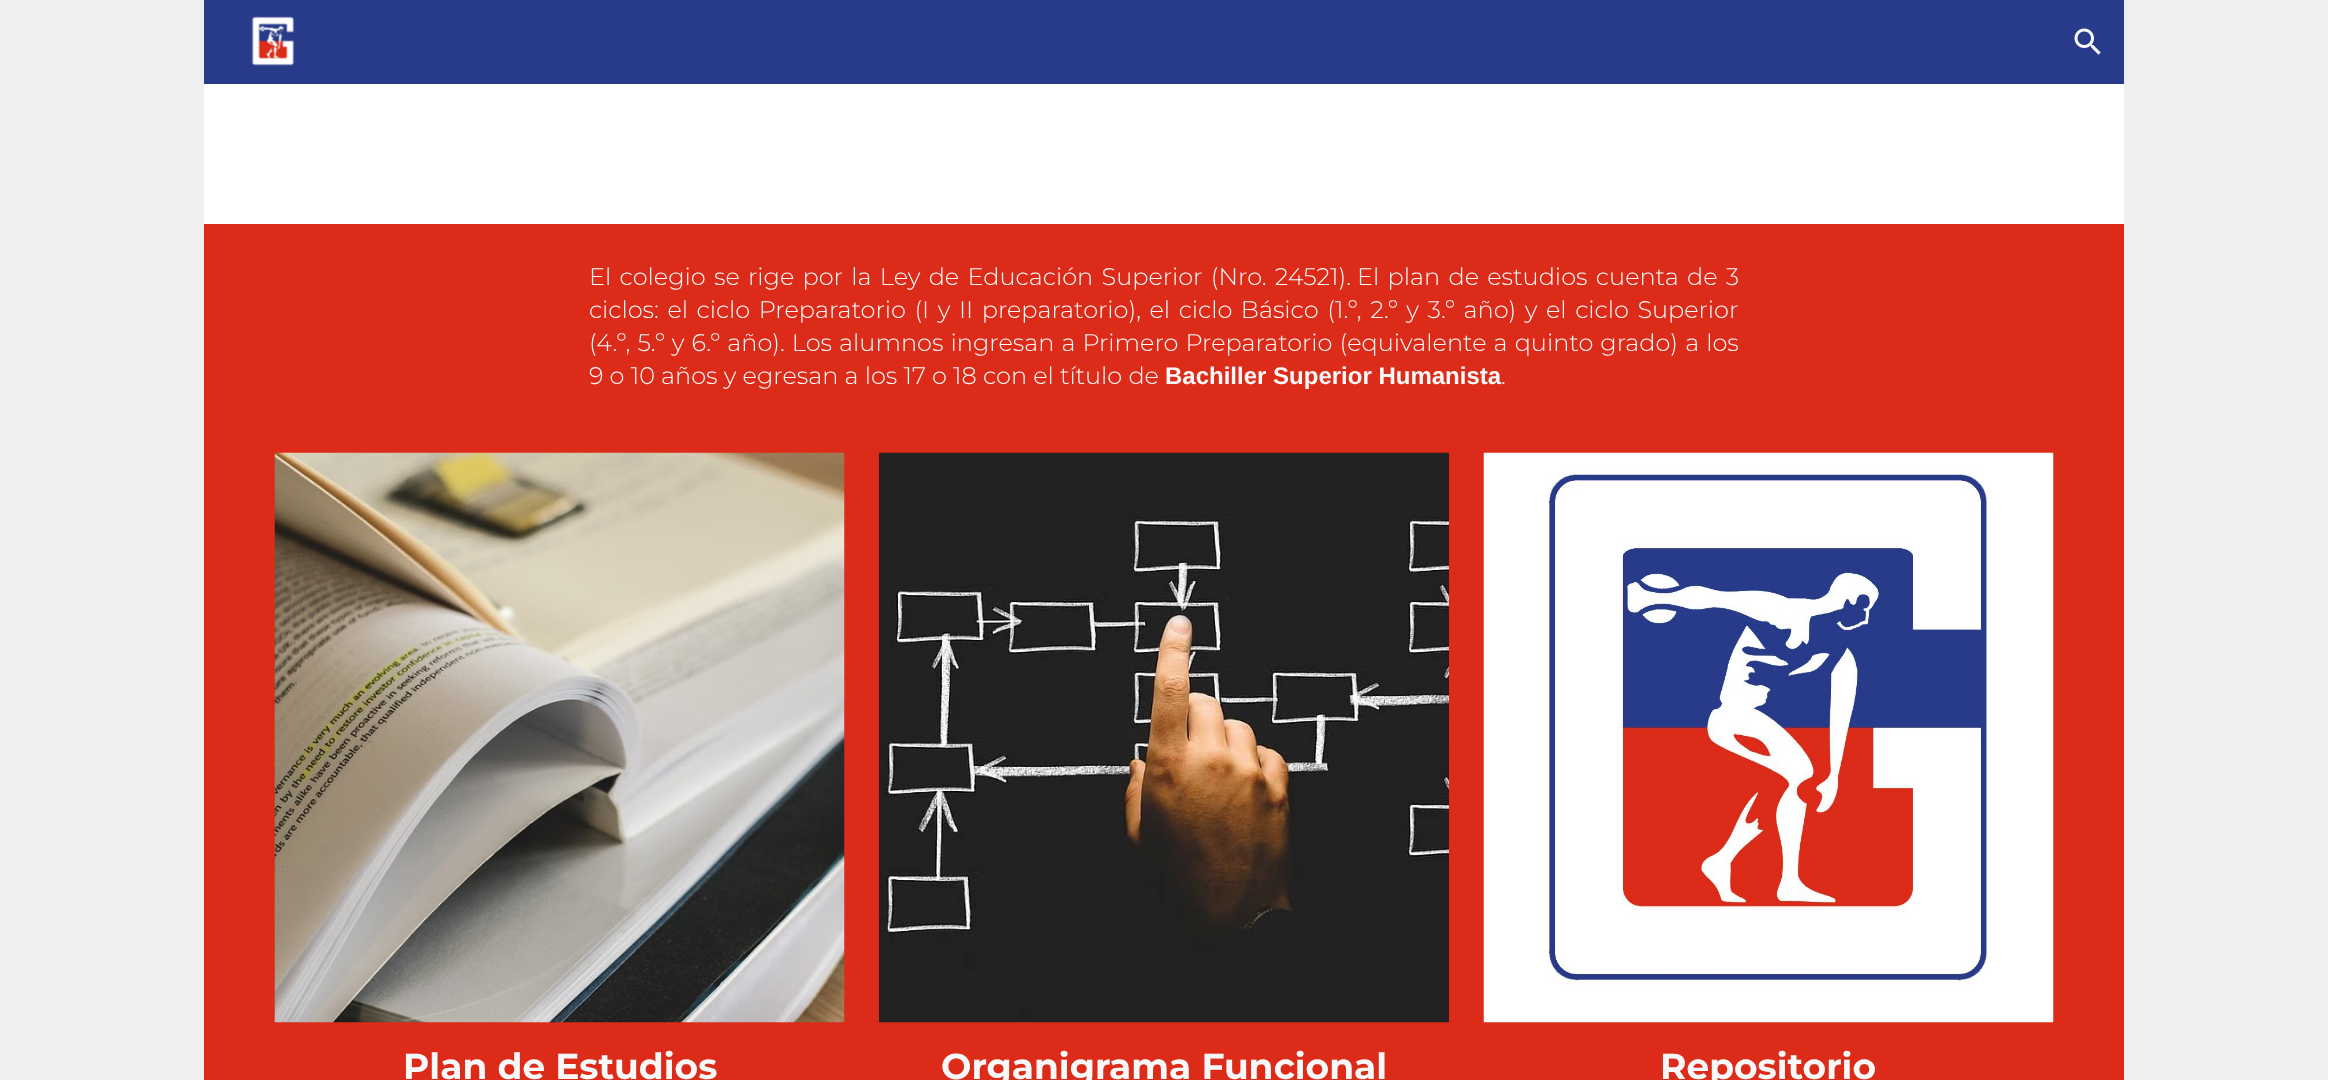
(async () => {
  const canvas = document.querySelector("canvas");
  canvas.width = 2328;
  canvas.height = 1080;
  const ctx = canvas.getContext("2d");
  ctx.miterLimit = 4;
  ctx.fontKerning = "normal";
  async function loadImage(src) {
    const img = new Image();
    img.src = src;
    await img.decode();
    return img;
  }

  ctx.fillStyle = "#efefef";
  ctx.fillRect(0, 0, 2328, 1080);
  ctx.fillStyle = "#283b8a";
  ctx.fillRect(204, 0, 1920, 84);
  ctx.drawImage(await loadImage("img/1.png"), 251, 16, 44, 50);
  ctx.drawImage(await loadImage("img/2.png"), 2074, 28, 27, 27);
  ctx.fillStyle = "#ffffff";
  ctx.fillRect(204, 84, 1920, 140);
  ctx.fillStyle = "#dc2b19";
  ctx.fillRect(204, 224, 1920, 856);
  ctx.drawImage(await loadImage("img/3.png"), 274, 452, 571, 571);
  ctx.drawImage(await loadImage("img/4.png"), 879, 452, 570, 571);
  ctx.drawImage(await loadImage("img/5.png"), 1483, 452, 571, 571);
  ctx.wordSpacing = "2.1px";
  ctx.font = "300 24px Montserrat";
  ctx.fillStyle = "#f9f9f9";
  ctx.fillText("El colegio se rige por la Ley de Educación Superior (Nro. 24521).", 589, 285);
  ctx.fillText("El plan de estudios cuenta de 3", 1357, 285);
  ctx.wordSpacing = "2.4px";
  ctx.fillText("ciclos: el ciclo Preparatorio (I y II preparatorio), el ciclo Básico (1.º, 2.º y 3.º año) y el ciclo Superior", 589, 318);
  ctx.wordSpacing = "0.9px";
  ctx.fillText("(4.º, 5.º y 6.º año). Los alumnos ingresan a Primero Preparatorio (equivalente a quinto grado) a los", 589, 351);
  ctx.wordSpacing = "0px";
  ctx.fillText("9 o 10 años y egresan a los 17 o 18 con el título de", 589, 384);
  ctx.font = "bold 24px Liberation Sans";
  ctx.fillText("Bachiller Superior Humanista", 1165, 384);
  ctx.font = "300 24px Montserrat";
  ctx.fillText(".", 1501, 384);
  ctx.font = "bold 36px Montserrat";
  for (const [text, x, y] of [
    ["Plan de Estudios", 403, 1079],
    ["Organigrama Funcional", 941, 1079],
    ["Repositorio", 1660, 1079],
  ]) {
    ctx.fillText(text, x, y);
  }
})();
